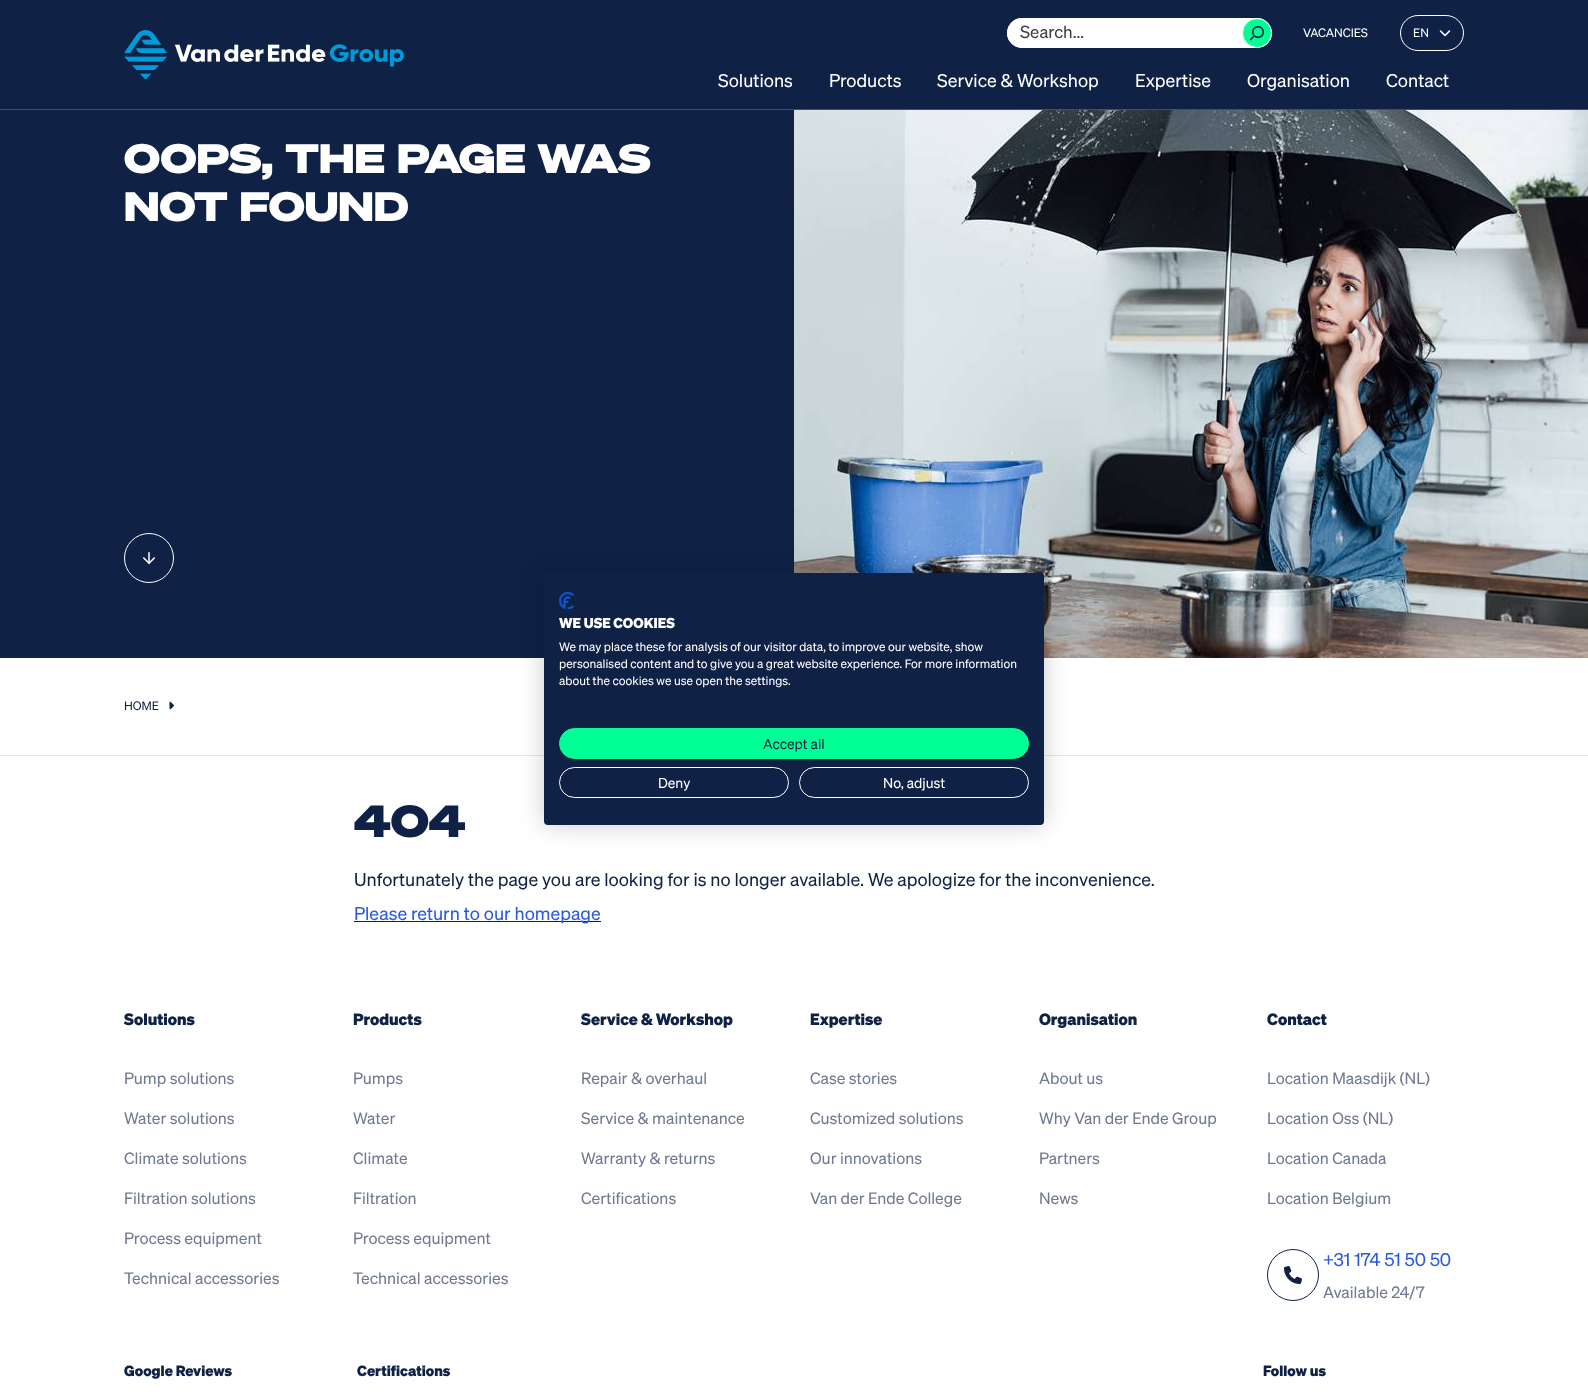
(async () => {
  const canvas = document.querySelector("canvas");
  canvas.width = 1588;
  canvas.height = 1397;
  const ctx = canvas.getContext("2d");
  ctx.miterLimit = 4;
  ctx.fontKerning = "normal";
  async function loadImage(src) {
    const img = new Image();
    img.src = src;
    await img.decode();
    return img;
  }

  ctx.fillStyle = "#ffffff";
  ctx.fillRect(0, 0, 1588, 1397);
  ctx.fillStyle = "#0f2246";
  ctx.fillRect(0, 0, 1588, 109);
  ctx.fillStyle = "#3f4e6b";
  ctx.fillRect(0, 109, 1588, 1);
  ctx.drawImage(await loadImage("img/1.png"), 124, 30, 280, 49);
  ctx.fillStyle = "#ffffff";
  ctx.beginPath();
  ctx.roundRect(1007, 18, 265, 30, 15);
  ctx.fill();
  ctx.beginPath();
  ctx.roundRect(1007.5, 18.5, 224, 29, 14.5);
  ctx.fill();
  ctx.strokeStyle = "#ffffff";
  ctx.stroke();
  ctx.fillStyle = "#00ff94";
  ctx.beginPath();
  ctx.arc(1257, 33, 14.5, 0, Math.PI * 2);
  ctx.fill();
  ctx.stroke();
  ctx.drawImage(await loadImage("img/2.png"), 1249, 26, 16, 15);
  ctx.beginPath();
  ctx.roundRect(1400.5, 15.5, 63, 35, 17.5);
  ctx.stroke();
  ctx.drawImage(await loadImage("img/3.png"), 1439, 30, 12, 7);
  ctx.fillStyle = "#0f2246";
  ctx.fillRect(0, 110, 794, 548);
  ctx.beginPath();
  ctx.arc(149, 558, 24.5, 0, Math.PI * 2);
  ctx.stroke();
  ctx.drawImage(await loadImage("img/4.png"), 143, 552, 12, 12);
  ctx.drawImage(await loadImage("img/5.png"), 794, 110, 794, 548);
  ctx.fillStyle = "#e6e6e6";
  ctx.fillRect(0, 755, 1588, 1);
  ctx.drawImage(await loadImage("img/6.png"), 169, 701, 5, 9);
  ctx.fillStyle = "#0f2246";
  ctx.fillRect(354, 921, 247, 1);
  ctx.beginPath();
  ctx.arc(1293, 1275, 25.5, 0, Math.PI * 2);
  ctx.strokeStyle = "#0f2246";
  ctx.stroke();
  ctx.drawImage(await loadImage("img/7.png"), 1284, 1266, 18, 18);
  ctx.fillStyle = "rgba(0, 0, 0, 0.2)";
  ctx.filter = "blur(12px)";
  ctx.beginPath();
  ctx.roundRect(544, 573, 500, 252, 4);
  ctx.fill();
  ctx.filter = "none";
  ctx.fillStyle = "#0f2246";
  ctx.beginPath();
  ctx.roundRect(544, 573, 500, 252, 4);
  ctx.fill();
  ctx.drawImage(await loadImage("img/8.png"), 559, 592, 15, 17);
  ctx.fillStyle = "#00ff94";
  ctx.beginPath();
  ctx.roundRect(559.5, 728.5, 469, 30, 15);
  ctx.fill();
  ctx.strokeStyle = "#00ff94";
  ctx.stroke();
  ctx.beginPath();
  ctx.roundRect(559.5, 767.5, 229, 30, 15);
  ctx.strokeStyle = "#ffffff";
  ctx.stroke();
  ctx.beginPath();
  ctx.roundRect(799.5, 767.5, 229, 30, 15);
  ctx.stroke();
  ctx.font = "17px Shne";
  ctx.fillStyle = "#404040";
  ctx.fillText("Search...", 1020, 38);
  ctx.font = "12px Shne";
  ctx.fillStyle = "#ffffff";
  ctx.fillText("VACANCIES", 1303, 37);
  ctx.fillText("EN", 1413, 37);
  ctx.font = "18px Shne";
  for (const [text, x, y] of [
    ["Solutions", 718, 87],
    ["Products", 829, 87],
    ["Service & Workshop", 937, 87],
    ["Expertise", 1135, 87],
    ["Organisation", 1247, 87],
    ["Contact", 1386, 87],
  ]) {
    ctx.fillText(text, x, y);
  }
  ctx.font = "900 40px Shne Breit";
  ctx.fillText("OOPS, THE PAGE WAS", 124, 173);
  ctx.fillText("NOT FOUND", 124, 221);
  ctx.font = "12px Shne";
  ctx.fillStyle = "#0f2246";
  ctx.fillText("HOME", 124, 710);
  ctx.font = "900 44px Shne Breit";
  ctx.fillText("404", 354, 837);
  ctx.font = "18px Shne";
  ctx.fillText("Unfortunately the page you are looking for is no longer available. We apologize for the inconvenience.", 354, 886);
  ctx.fillStyle = "#295bde";
  ctx.fillText("Please return to our homepage", 354, 920);
  ctx.font = "800 16px Shne";
  ctx.fillStyle = "#0f2246";
  ctx.fillText("Solutions", 124, 1025);
  ctx.font = "16px Shne";
  ctx.fillStyle = "#6f7a90";
  for (const [text, x, y] of [
    ["Pump solutions", 124, 1084],
    ["Water solutions", 124, 1124],
    ["Climate solutions", 124, 1164],
    ["Filtration solutions", 124, 1204],
    ["Process equipment", 124, 1244],
    ["Technical accessories", 124, 1284],
  ]) {
    ctx.fillText(text, x, y);
  }
  ctx.font = "800 16px Shne";
  ctx.fillStyle = "#0f2246";
  ctx.fillText("Products", 353, 1025);
  ctx.font = "16px Shne";
  ctx.fillStyle = "#6f7a90";
  for (const [text, x, y] of [
    ["Pumps", 353, 1084],
    ["Water", 353, 1124],
    ["Climate", 353, 1164],
    ["Filtration", 353, 1204],
    ["Process equipment", 353, 1244],
    ["Technical accessories", 353, 1284],
  ]) {
    ctx.fillText(text, x, y);
  }
  ctx.font = "800 16px Shne";
  ctx.fillStyle = "#0f2246";
  ctx.fillText("Service & Workshop", 581, 1025);
  ctx.font = "16px Shne";
  ctx.fillStyle = "#6f7a90";
  for (const [text, x, y] of [
    ["Repair & overhaul", 581, 1084],
    ["Service & maintenance", 581, 1124],
    ["Warranty & returns", 581, 1164],
    ["Certifications", 581, 1204],
  ]) {
    ctx.fillText(text, x, y);
  }
  ctx.font = "800 16px Shne";
  ctx.fillStyle = "#0f2246";
  ctx.fillText("Expertise", 810, 1025);
  ctx.font = "16px Shne";
  ctx.fillStyle = "#6f7a90";
  for (const [text, x, y] of [
    ["Case stories", 810, 1084],
    ["Customized solutions", 810, 1124],
    ["Our innovations", 810, 1164],
    ["Van der Ende College", 810, 1204],
  ]) {
    ctx.fillText(text, x, y);
  }
  ctx.font = "800 16px Shne";
  ctx.fillStyle = "#0f2246";
  ctx.fillText("Organisation", 1039, 1025);
  ctx.font = "16px Shne";
  ctx.fillStyle = "#6f7a90";
  for (const [text, x, y] of [
    ["About us", 1039, 1084],
    ["Why Van der Ende Group", 1039, 1124],
    ["Partners", 1039, 1164],
    ["News", 1039, 1204],
  ]) {
    ctx.fillText(text, x, y);
  }
  ctx.font = "800 16px Shne";
  ctx.fillStyle = "#0f2246";
  ctx.fillText("Contact", 1267, 1025);
  ctx.font = "16px Shne";
  ctx.fillStyle = "#6f7a90";
  for (const [text, x, y] of [
    ["Location Maasdijk (NL)", 1267, 1084],
    ["Location Oss (NL)", 1267, 1124],
    ["Location Canada", 1267, 1164],
    ["Location Belgium", 1267, 1204],
  ]) {
    ctx.fillText(text, x, y);
  }
  ctx.font = "18px Shne";
  ctx.fillStyle = "#295bde";
  ctx.fillText("+31 174 51 50 50", 1323, 1266);
  ctx.font = "16px Shne";
  ctx.fillStyle = "#6f7a90";
  ctx.fillText("Available 24/7", 1323, 1298);
  ctx.font = "800 14.5px Shne";
  ctx.fillStyle = "#0f2246";
  for (const [text, x, y] of [
    ["Google Reviews", 124, 1376],
    ["Certifications", 357, 1376],
    ["Follow us", 1263, 1376],
  ]) {
    ctx.fillText(text, x, y);
  }
  ctx.font = "800 14px Shne";
  ctx.fillStyle = "#ffffff";
  ctx.fillText("WE USE COOKIES", 559, 628);
  ctx.font = "12px Shne";
  for (const [text, x, y] of [
    ["We may place these for analysis of our visitor data, to improve our website, show", 559, 651],
    ["personalised content and to give you a great website experience. For more information", 559, 668],
    ["about the cookies we use open the settings.", 559, 685],
  ]) {
    ctx.fillText(text, x, y);
  }
  ctx.font = "14px Shne";
  ctx.fillStyle = "#0f2246";
  ctx.fillText("Accept all", 763, 749);
  ctx.fillStyle = "#ffffff";
  ctx.fillText("Deny", 658, 788);
  ctx.fillText("No, adjust", 883, 788);
})();
